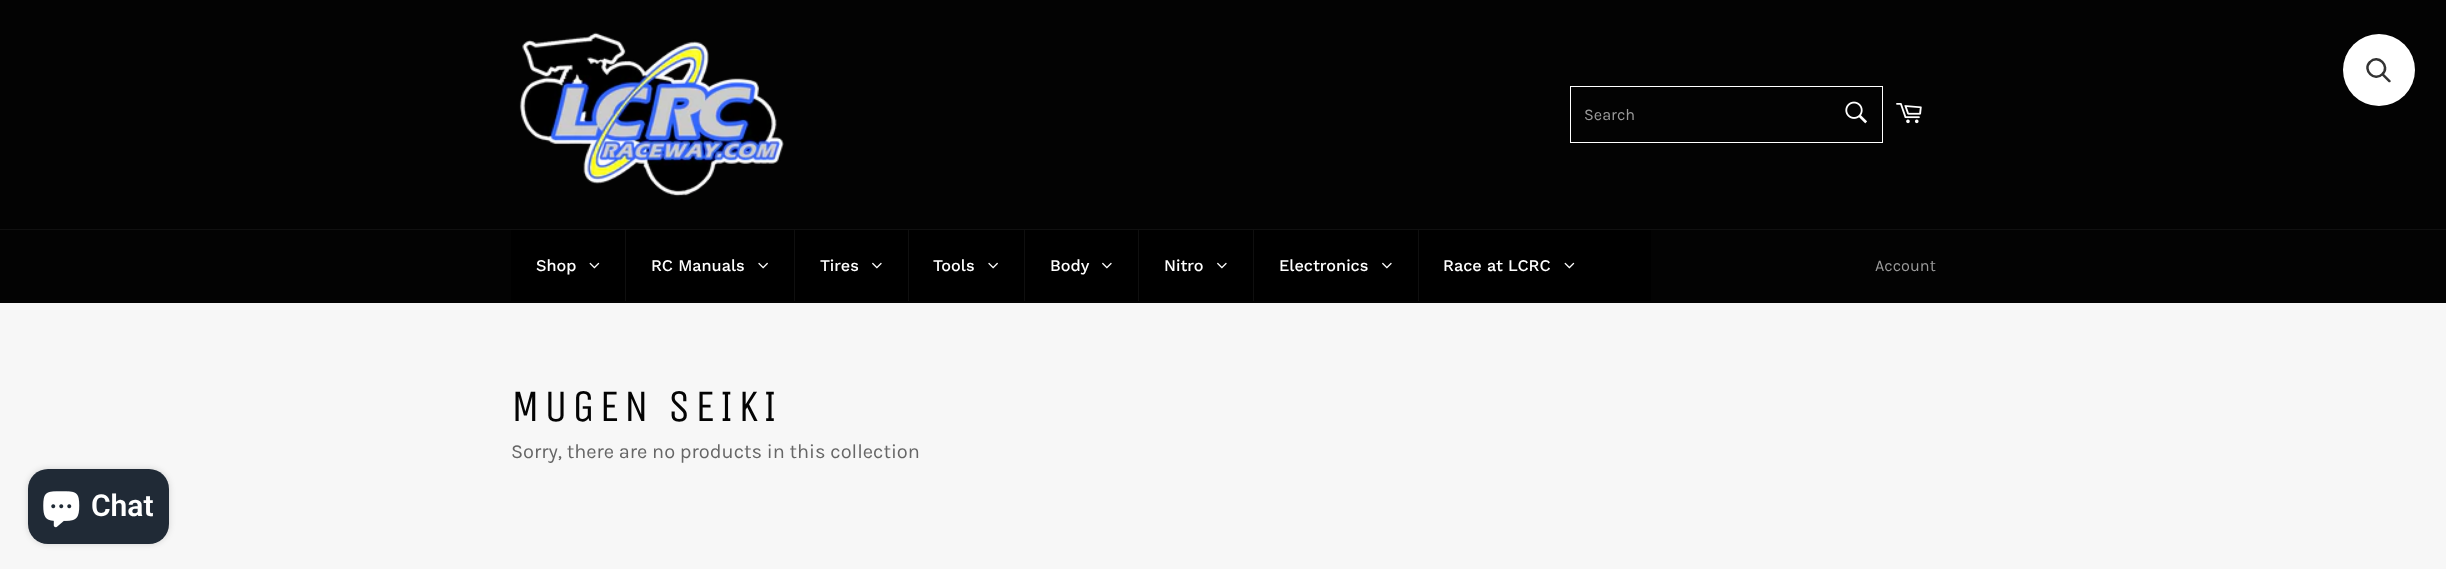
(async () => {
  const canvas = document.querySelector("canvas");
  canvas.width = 2446;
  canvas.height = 569;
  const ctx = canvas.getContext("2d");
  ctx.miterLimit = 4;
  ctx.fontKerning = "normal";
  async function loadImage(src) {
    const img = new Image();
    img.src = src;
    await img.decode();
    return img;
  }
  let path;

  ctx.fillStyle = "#f7f7f7";
  ctx.fillRect(0, 0, 2446, 569);
  ctx.fillStyle = "#030303";
  ctx.fillRect(0, 0, 2446, 229);
  ctx.fillStyle = "#ffffff";
  ctx.beginPath();
  ctx.arc(2379, 70, 36, 0, Math.PI * 2);
  ctx.fill();
  path = new Path2D("M2370 62C2378 53.5 2390.5 66 2382.5 74C2374.5 82.5 2362 70 2370 62Z");
  ctx.strokeStyle = "#333333";
  ctx.lineWidth = 2.5;
  ctx.stroke(path);
  ctx.fillStyle = "#333333";
  path = new Path2D("M2381.5 75L2383.5 73.5L2390.5 80.5C2391.5 81.5 2389.5 83 2388.5 82Z");
  ctx.fill(path);
  ctx.drawImage(await loadImage("img/1.png"), 519, 32, 265, 165);
  ctx.strokeStyle = "#ffffff";
  ctx.lineWidth = 1;
  ctx.strokeRect(1570.5, 86.5, 312, 56);
  ctx.drawImage(await loadImage("img/2.png"), 1845, 101, 22, 23);
  ctx.drawImage(await loadImage("img/3.png"), 1896, 103, 26, 21);
  for (const [x, y, w, h, color] of [
    [0, 230, 2446, 73, "#030303"],
    [0, 229, 2446, 1, "#101010"],
    [511, 230, 1140, 71, "#000000"],
  ]) {
    ctx.fillStyle = color;
    ctx.fillRect(x, y, w, h);
  }
  ctx.drawImage(await loadImage("img/4.png"), 589, 262, 11, 7);
  ctx.fillStyle = "#0f0f0f";
  ctx.fillRect(625, 230, 1, 71);
  ctx.drawImage(await loadImage("img/5.png"), 758, 262, 10, 7);
  ctx.fillRect(794, 230, 1, 71);
  ctx.drawImage(await loadImage("img/6.png"), 872, 262, 10, 7);
  ctx.fillRect(908, 230, 1, 71);
  ctx.drawImage(await loadImage("img/5.png"), 988, 262, 10, 7);
  ctx.fillRect(1024, 230, 1, 71);
  ctx.drawImage(await loadImage("img/6.png"), 1102, 262, 10, 7);
  ctx.fillRect(1138, 230, 1, 71);
  ctx.drawImage(await loadImage("img/6.png"), 1217, 262, 10, 7);
  ctx.fillRect(1253, 230, 1, 71);
  ctx.drawImage(await loadImage("img/6.png"), 1382, 262, 10, 7);
  ctx.fillRect(1418, 230, 1, 71);
  ctx.drawImage(await loadImage("img/4.png"), 1564, 262, 11, 7);
  ctx.fillStyle = "rgba(0, 0, 0, 0.15)";
  ctx.filter = "blur(3px)";
  ctx.beginPath();
  ctx.roundRect(28, 469, 141, 75, 20);
  ctx.fill();
  ctx.filter = "none";
  ctx.fillStyle = "#202a36";
  ctx.beginPath();
  ctx.roundRect(28, 469, 141, 75, 20);
  ctx.fill();
  ctx.drawImage(await loadImage("img/7.png"), 43, 491, 37, 37);
  ctx.font = "16.25px Karla";
  ctx.fillStyle = "#9a9a9a";
  ctx.fillText("Search", 1584, 120);
  ctx.font = "500 16.25px Work Sans";
  ctx.fillStyle = "#ffffff";
  for (const [text, x, y] of [
    ["Shop", 536, 271],
    ["RC Manuals", 651, 271],
    ["Tires", 820, 271],
    ["Tools", 933, 271],
    ["Body", 1050, 271],
    ["Nitro", 1164, 271],
    ["Electronics", 1279, 271],
    ["Race at LCRC", 1443, 271],
  ]) {
    ctx.fillText(text, x, y);
  }
  ctx.font = "16.25px Karla";
  ctx.fillStyle = "#9a9a9a";
  ctx.fillText("Account", 1875, 271);
  ctx.letterSpacing = "4.5px";
  ctx.font = "45px Unica One";
  ctx.fillStyle = "#030303";
  ctx.fillText("MUGEN SEIKI", 511, 421);
  ctx.letterSpacing = "0px";
  ctx.font = "20px Karla";
  ctx.fillStyle = "#666666";
  ctx.fillText("Sorry, there are no products in this collection", 511, 458);
  ctx.font = "600 30px Roboto";
  ctx.fillStyle = "#ffffff";
  ctx.fillText("Chat", 91, 516);
})();
